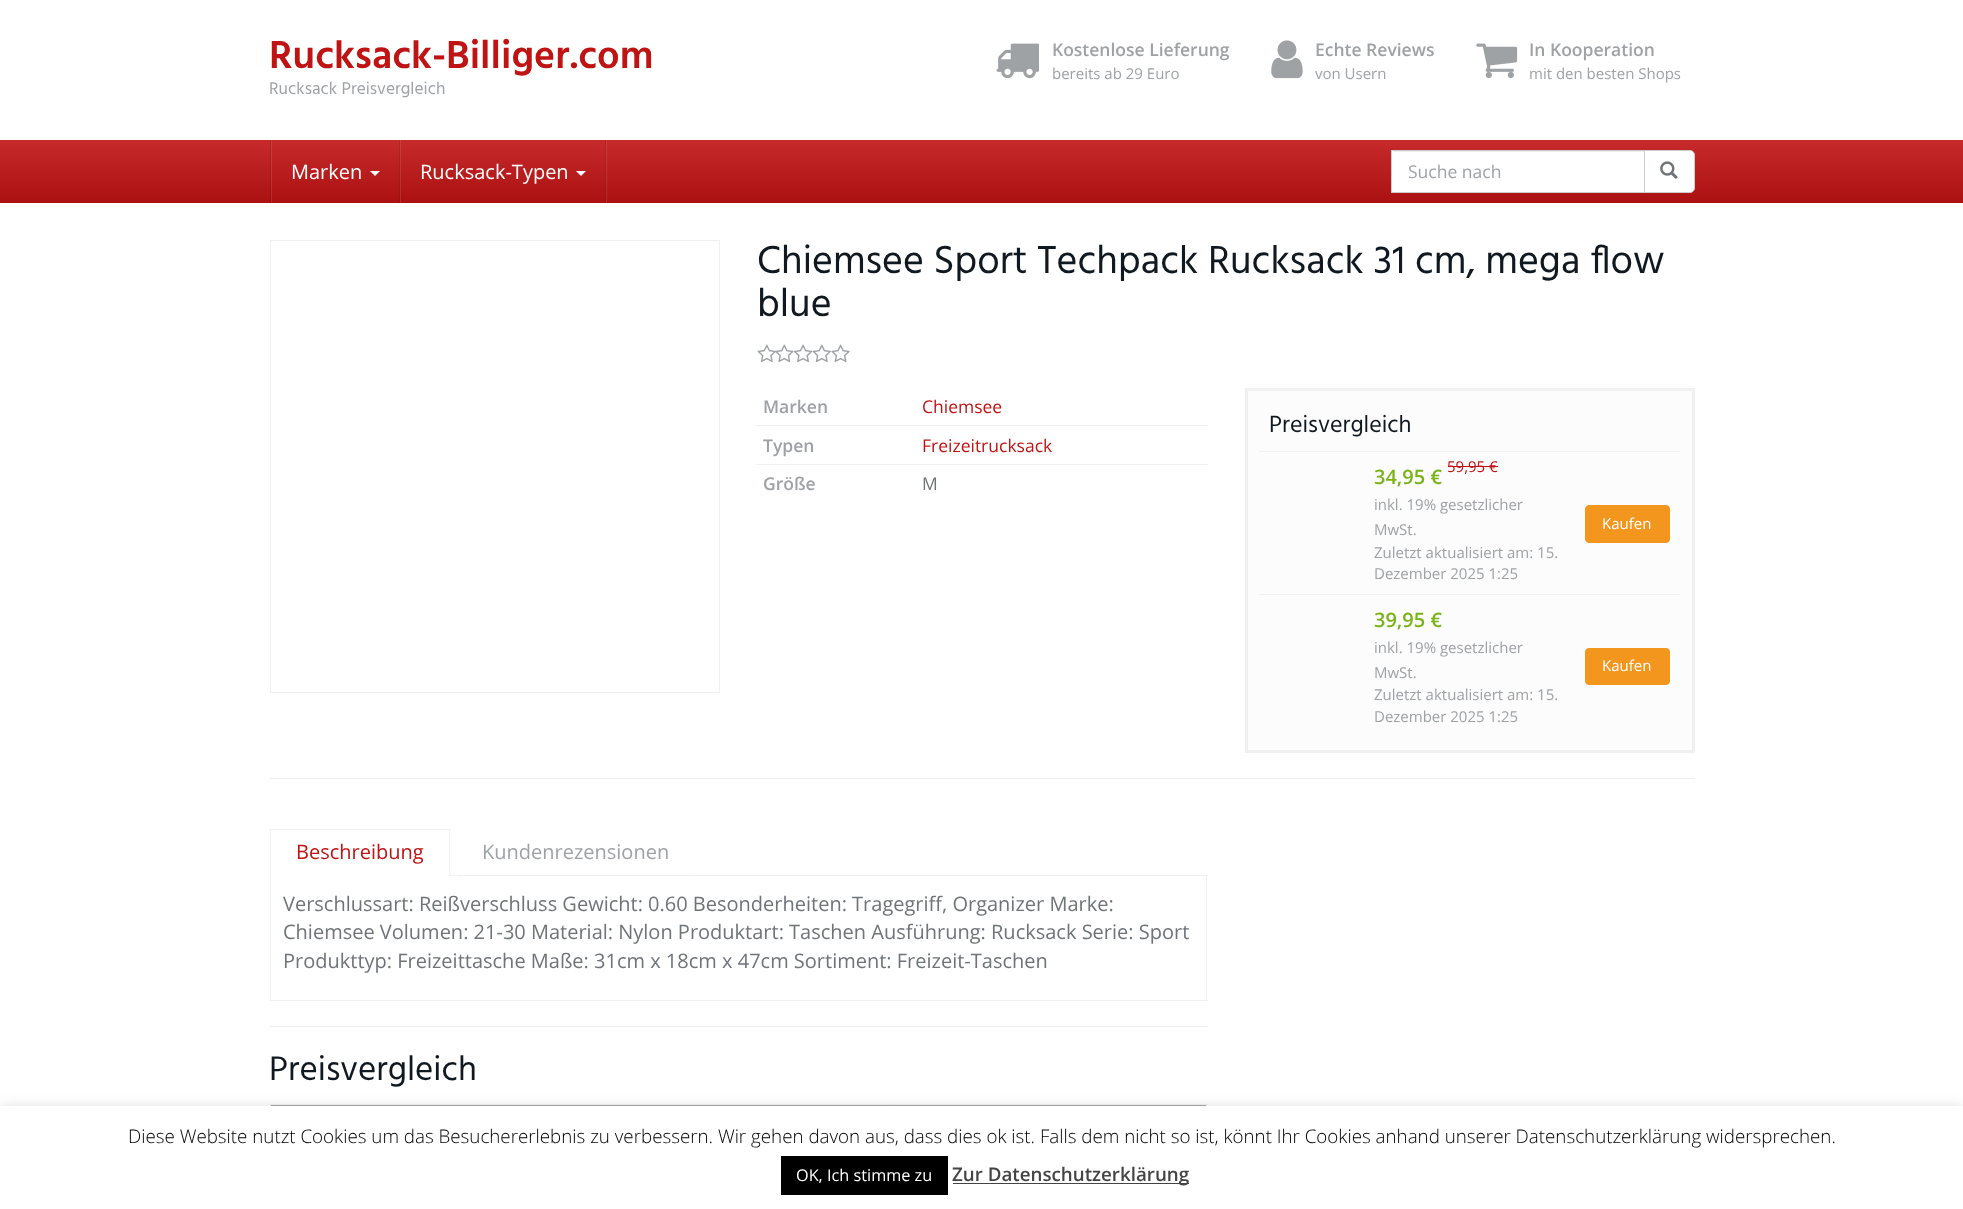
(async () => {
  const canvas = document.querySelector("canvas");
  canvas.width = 1963;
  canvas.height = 1209;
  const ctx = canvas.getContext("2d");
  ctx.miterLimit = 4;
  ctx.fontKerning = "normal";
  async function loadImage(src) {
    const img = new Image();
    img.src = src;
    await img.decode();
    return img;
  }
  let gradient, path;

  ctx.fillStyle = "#ffffff";
  ctx.fillRect(0, 0, 1963, 1209);
  ctx.drawImage(await loadImage("img/1.png"), 996, 43, 43, 36);
  ctx.drawImage(await loadImage("img/2.png"), 1271, 40, 32, 39);
  ctx.drawImage(await loadImage("img/3.png"), 1476, 43, 42, 36);
  gradient = ctx.createLinearGradient(982, 140, 982, 203);
  gradient.addColorStop(0, "#c62a2a");
  gradient.addColorStop(1, "#ac1111");
  ctx.fillStyle = gradient;
  ctx.fillRect(0, 140, 1963, 63);
  gradient = ctx.createLinearGradient(982, 140, 982, 203);
  gradient.addColorStop(0, "#cc3f3f");
  gradient.addColorStop(1, "#b42929");
  ctx.fillStyle = gradient;
  ctx.fillRect(400, 140, 1, 63);
  gradient = ctx.createLinearGradient(982, 140, 982, 203);
  gradient.addColorStop(0, "#b22626");
  gradient.addColorStop(1, "#9b0f0f");
  ctx.fillStyle = gradient;
  ctx.fillRect(605, 140, 1, 63);
  gradient = ctx.createLinearGradient(982, 140, 982, 203);
  gradient.addColorStop(0, "#cc3f3f");
  gradient.addColorStop(1, "#b42929");
  ctx.fillStyle = gradient;
  ctx.fillRect(271, 140, 1, 63);
  gradient = ctx.createLinearGradient(982, 140, 982, 203);
  gradient.addColorStop(0, "#b22626");
  gradient.addColorStop(1, "#9b0f0f");
  ctx.fillStyle = gradient;
  ctx.fillRect(399, 140, 1, 63);
  ctx.fillRect(270, 140, 1, 63);
  gradient = ctx.createLinearGradient(982, 140, 982, 203);
  gradient.addColorStop(0, "#cc3f3f");
  gradient.addColorStop(1, "#b42929");
  ctx.fillStyle = gradient;
  ctx.fillRect(606, 140, 1, 63);
  ctx.fillStyle = "#ffffff";
  path = new Path2D("M370 171H380L375 176Z");
  ctx.fill(path);
  path = new Path2D("M576 171H586L581 176Z");
  ctx.fill(path);
  ctx.fillRect(1392, 151, 252, 41);
  ctx.fillStyle = "#ececec";
  ctx.fillRect(1393, 151, 251, 1);
  ctx.strokeStyle = "#cccccc";
  ctx.strokeRect(1391.5, 150.5, 253, 42);
  ctx.fillStyle = "#ffffff";
  ctx.beginPath();
  ctx.roundRect(1644.5, 150.5, 50, 42, [0, 4.5, 4.5, 0]);
  ctx.fill();
  ctx.stroke();
  ctx.drawImage(await loadImage("img/4.png"), 1660, 161, 18, 18);
  ctx.strokeStyle = "#f0f0f0";
  ctx.strokeRect(270.5, 240.5, 449, 452);
  ctx.drawImage(await loadImage("img/5.png"), 757, 344, 19, 19);
  ctx.drawImage(await loadImage("img/6.png"), 775, 344, 19, 19);
  ctx.drawImage(await loadImage("img/7.png"), 793, 344, 20, 19);
  ctx.drawImage(await loadImage("img/8.png"), 812, 344, 19, 19);
  ctx.drawImage(await loadImage("img/9.png"), 831, 344, 19, 19);
  ctx.fillStyle = "#f0f0f0";
  ctx.fillRect(756, 425, 452, 1);
  ctx.fillRect(756, 464, 452, 1);
  ctx.fillStyle = "#fcfcfc";
  ctx.beginPath();
  ctx.rect(1246.5, 389.5, 447, 362);
  ctx.fill();
  ctx.lineWidth = 3;
  ctx.stroke();
  ctx.fillStyle = "#c01313";
  ctx.fillRect(1448, 466, 50, 1);
  ctx.fillStyle = "#f0f0f0";
  ctx.fillRect(1259, 451, 421, 1);
  ctx.fillStyle = "#f3961d";
  ctx.beginPath();
  ctx.roundRect(1585.5, 505.5, 84, 37, 3.5);
  ctx.fill();
  ctx.strokeStyle = "#f3961d";
  ctx.lineWidth = 1;
  ctx.stroke();
  ctx.fillStyle = "#f0f0f0";
  ctx.fillRect(1259, 594, 421, 1);
  ctx.fillStyle = "#f3961d";
  ctx.beginPath();
  ctx.roundRect(1585.5, 648.5, 84, 36, 3.5);
  ctx.fill();
  ctx.stroke();
  for (const [x, y, w, h, color] of [
    [270, 778, 1425, 1, "#eeeeee"],
    [450, 875, 758, 1, "#f0f0f0"],
    [270, 829, 180, 1, "#f0f0f0"],
  ]) {
    ctx.fillStyle = color;
    ctx.fillRect(x, y, w, h);
  }
  path = new Path2D("M450 829V876L449 875V830Z");
  ctx.fill(path);
  path = new Path2D("M270 876V829L271 830V875Z");
  ctx.fill(path);
  ctx.fillStyle = "#ffffff";
  ctx.fillRect(456, 875, 239, 1);
  ctx.fillStyle = "#f0f0f0";
  path = new Path2D("M695 876H456L458 875H694Z");
  ctx.fill(path);
  for (const [x, y, w, h, color] of [
    [1206, 876, 1, 125, "#f0f0f0"],
    [270, 1000, 938, 1, "#f0f0f0"],
    [270, 876, 1, 125, "#f0f0f0"],
    [270, 1026, 938, 1, "#eeeeee"],
  ]) {
    ctx.fillStyle = color;
    ctx.fillRect(x, y, w, h);
  }
  gradient = ctx.createLinearGradient(698, 1104, 698, 1150);
  gradient.addColorStop(0, "#a9abae");
  gradient.addColorStop(1, "#7d8286");
  ctx.fillStyle = gradient;
  ctx.fillRect(504, 1104, 1, 2);
  gradient = ctx.createLinearGradient(698, 1104, 698, 1150);
  gradient.addColorStop(0, "#9fa2a5");
  gradient.addColorStop(1, "#6f7479");
  ctx.fillStyle = gradient;
  ctx.fillRect(505, 1105, 388, 1);
  gradient = ctx.createLinearGradient(698, 1104, 698, 1150);
  gradient.addColorStop(0, "#a9abae");
  gradient.addColorStop(1, "#7d8286");
  ctx.fillStyle = gradient;
  ctx.fillRect(891, 1104, 1, 2);
  for (const [x, y, w, h, color] of [
    [270, 1104, 938, 1, "#f0f0f0"],
    [1206, 1104, 1, 2, "#f0f0f0"],
    [270, 1104, 1, 2, "#f0f0f0"],
  ]) {
    ctx.fillStyle = color;
    ctx.fillRect(x, y, w, h);
  }
  gradient = ctx.createLinearGradient(387, 1104, 387, 1150);
  gradient.addColorStop(0, "#9fa2a5");
  gradient.addColorStop(1, "#6f7479");
  ctx.fillStyle = gradient;
  ctx.fillRect(271, 1105, 233, 1);
  gradient = ctx.createLinearGradient(1049, 1104, 1049, 1150);
  gradient.addColorStop(0, "#9fa2a5");
  gradient.addColorStop(1, "#6f7479");
  ctx.fillStyle = gradient;
  ctx.fillRect(893, 1105, 313, 1);
  ctx.fillStyle = "rgba(172, 171, 171, 0.3)";
  ctx.filter = "blur(6px)";
  ctx.beginPath();
  ctx.rect(0, 1105, 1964, 104);
  ctx.fill();
  ctx.filter = "none";
  for (const [x, y, w, h, color] of [
    [0, 1106, 1963, 103, "#ffffff"],
    [781, 1156, 167, 39, "#000000"],
    [953, 1183, 236, 1, "#444444"],
  ]) {
    ctx.fillStyle = color;
    ctx.fillRect(x, y, w, h);
  }
  ctx.font = "600 40px Hind";
  ctx.fillStyle = "#c01313";
  ctx.fillText("Rucksack-Billiger.com", 269, 68);
  ctx.font = "17.5px Hind";
  ctx.fillStyle = "#9fa2a5";
  ctx.fillText("Rucksack Preisvergleich", 269, 94);
  ctx.font = "600 17.5px Open Sans";
  ctx.fillText("Kostenlose Lieferung", 1052, 56);
  ctx.font = "15px Open Sans";
  ctx.fillText("bereits ab 29 Euro", 1052, 79);
  ctx.font = "600 17.5px Open Sans";
  ctx.fillText("Echte Reviews", 1315, 56);
  ctx.font = "15px Open Sans";
  ctx.fillText("von Usern", 1315, 79);
  ctx.font = "600 17.5px Open Sans";
  ctx.fillText("In Kooperation", 1529, 56);
  ctx.font = "15px Open Sans";
  ctx.fillText("mit den besten Shops", 1529, 79);
  ctx.font = "20px Open Sans";
  ctx.fillStyle = "#ffffff";
  ctx.fillText("Marken", 291, 179);
  ctx.fillText("Rucksack-Typen", 420, 179);
  ctx.font = "17.5px Open Sans";
  ctx.fillStyle = "#9fa2a5";
  ctx.fillText("Suche nach", 1408, 178);
  ctx.font = "40px Hind";
  ctx.fillStyle = "#101820";
  ctx.fillText("Chiemsee Sport Techpack Rucksack 31 cm, mega flow", 757, 273);
  ctx.fillText("blue", 757, 316);
  ctx.font = "600 17.5px Open Sans";
  ctx.fillStyle = "#9fa2a5";
  ctx.fillText("Marken", 763, 413);
  ctx.font = "17.5px Open Sans";
  ctx.fillStyle = "#c01313";
  ctx.fillText("Chiemsee", 922, 413);
  ctx.font = "600 17.5px Open Sans";
  ctx.fillStyle = "#9fa2a5";
  ctx.fillText("Typen", 763, 452);
  ctx.font = "17.5px Open Sans";
  ctx.fillStyle = "#c01313";
  ctx.fillText("Freizeitrucksack", 922, 452);
  ctx.font = "600 17.5px Open Sans";
  ctx.fillStyle = "#9fa2a5";
  ctx.fillText("Größe", 763, 490);
  ctx.font = "17.5px Open Sans";
  ctx.fillStyle = "#6f7479";
  ctx.fillText("M", 922, 490);
  ctx.font = "24px Hind";
  ctx.fillStyle = "#101820";
  ctx.fillText("Preisvergleich", 1269, 432);
  ctx.font = "15px Open Sans";
  ctx.fillStyle = "#c01313";
  ctx.fillText("59,95 €", 1447, 472);
  ctx.font = "600 20px Open Sans";
  ctx.fillStyle = "#7ab317";
  ctx.fillText("34,95 €", 1374, 484);
  ctx.font = "15px Open Sans";
  ctx.fillStyle = "#9fa2a5";
  for (const [text, x, y] of [
    ["inkl. 19% gesetzlicher", 1374, 510],
    ["MwSt.", 1374, 535],
    ["Zuletzt aktualisiert am: 15.", 1374, 558],
    ["Dezember 2025 1:25", 1374, 579],
  ]) {
    ctx.fillText(text, x, y);
  }
  ctx.fillStyle = "#ffffff";
  ctx.fillText("Kaufen", 1602, 529);
  ctx.font = "600 20px Open Sans";
  ctx.fillStyle = "#7ab317";
  ctx.fillText("39,95 €", 1374, 627);
  ctx.font = "15px Open Sans";
  ctx.fillStyle = "#9fa2a5";
  for (const [text, x, y] of [
    ["inkl. 19% gesetzlicher", 1374, 653],
    ["MwSt.", 1374, 678],
    ["Zuletzt aktualisiert am: 15.", 1374, 700],
    ["Dezember 2025 1:25", 1374, 722],
  ]) {
    ctx.fillText(text, x, y);
  }
  ctx.fillStyle = "#ffffff";
  ctx.fillText("Kaufen", 1602, 671);
  ctx.font = "20px Open Sans";
  ctx.fillStyle = "#c01313";
  ctx.fillText("Beschreibung", 296, 859);
  ctx.fillStyle = "#9fa2a5";
  ctx.fillText("Kundenrezensionen", 482, 859);
  ctx.fillStyle = "#6f7479";
  for (const [text, x, y] of [
    ["Verschlussart: Reißverschluss Gewicht: 0.60 Besonderheiten: Tragegriff, Organizer Marke:", 283, 911],
    ["Chiemsee Volumen: 21-30 Material: Nylon Produktart: Taschen Ausführung: Rucksack Serie: Sport", 283, 939],
    ["Produkttyp: Freizeittasche Maße: 31cm x 18cm x 47cm Sortiment: Freizeit-Taschen", 283, 968],
  ]) {
    ctx.fillText(text, x, y);
  }
  ctx.font = "35px Hind";
  ctx.fillStyle = "#101820";
  ctx.fillText("Preisvergleich", 269, 1080);
  ctx.font = "300 18.75px Open Sans";
  ctx.fillStyle = "#000000";
  ctx.fillText("Diese Website nutzt Cookies um das Besuchererlebnis zu verbessern. Wir gehen davon aus, dass dies ok ist. Falls dem nicht so ist, könnt Ihr Cookies anhand unserer Datenschutzerklärung widersprechen.", 128, 1143);
  ctx.font = "16.25px Open Sans";
  ctx.fillStyle = "#ffffff";
  ctx.fillText("OK, Ich stimme zu", 796, 1181);
  ctx.font = "600 18.75px Open Sans";
  ctx.fillStyle = "#444444";
  ctx.fillText("Zur Datenschutzerklärung", 952, 1181);
})();
